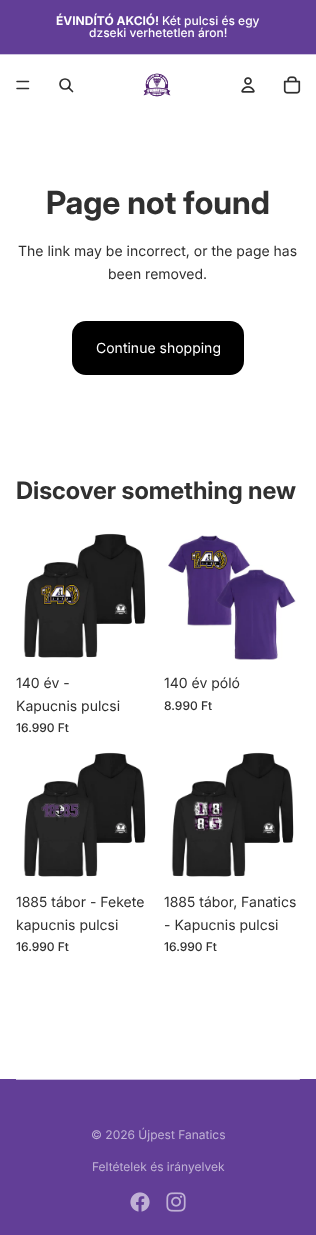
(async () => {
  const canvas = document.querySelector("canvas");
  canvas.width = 316;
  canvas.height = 1235;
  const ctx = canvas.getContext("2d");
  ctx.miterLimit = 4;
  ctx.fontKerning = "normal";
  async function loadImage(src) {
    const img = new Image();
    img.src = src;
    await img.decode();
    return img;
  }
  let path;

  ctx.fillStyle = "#ffffff";
  ctx.fillRect(0, 0, 316, 1235);
  ctx.fillStyle = "#623e97";
  ctx.fillRect(0, 0, 316, 54);
  ctx.fillStyle = "#cec3df";
  ctx.fillRect(0, 54, 316, 1);
  path = new Path2D("M17 81.5H28.5M17 88.5H28.5");
  ctx.strokeStyle = "#303030";
  ctx.lineWidth = 1.5;
  ctx.lineCap = "round";
  ctx.stroke(path);
  ctx.beginPath();
  ctx.arc(65, 84, 5, 0, Math.PI * 2);
  ctx.lineWidth = 1.7;
  ctx.stroke();
  path = new Path2D("M69 88L72.5 91.5");
  ctx.strokeStyle = "rgba(0, 0, 0, 0.81)";
  ctx.lineJoin = "round";
  ctx.stroke(path);
  ctx.drawImage(await loadImage("img/1.png"), 143, 73, 28, 24);
  ctx.drawImage(await loadImage("img/2.png"), 241, 77, 14, 16);
  ctx.drawImage(await loadImage("img/3.png"), 283, 76, 18, 18);
  ctx.fillStyle = "#000000";
  ctx.beginPath();
  ctx.roundRect(72, 321, 172, 54, 14);
  ctx.fill();
  ctx.drawImage(await loadImage("img/4.png"), 23, 533, 123, 125);
  ctx.drawImage(await loadImage("img/5.png"), 168, 535, 128, 125);
  ctx.drawImage(await loadImage("img/6.png"), 23, 752, 123, 125);
  ctx.drawImage(await loadImage("img/7.png"), 171, 752, 123, 125);
  ctx.fillStyle = "#623e97";
  ctx.fillRect(0, 1079, 316, 156);
  ctx.fillStyle = "#cec3df";
  path = new Path2D("M300 1079V1080L299 1079Z");
  ctx.fill(path);
  ctx.fillStyle = "rgba(255, 255, 255, 0.69)";
  path = new Path2D("M300 1080H16V1079H299Z");
  ctx.fill(path);
  ctx.drawImage(await loadImage("img/8.png"), 130, 1192, 20, 20);
  ctx.drawImage(await loadImage("img/9.png"), 166, 1192, 20, 20);
  ctx.font = "bold 12px Inter";
  ctx.fillStyle = "#ffffff";
  ctx.fillText("ÉVINDÍTÓ AKCIÓ!", 56, 25);
  ctx.font = "500 12px Inter";
  ctx.fillText("Két pulcsi és egy", 162, 25);
  ctx.fillText("dzseki verhetetlen áron!", 89, 37);
  ctx.font = "bold 32px 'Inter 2'";
  ctx.fillStyle = "#303030";
  ctx.fillText("Page not found", 46, 214);
  ctx.font = "14px Inter";
  ctx.fillText("The link may be incorrect, or the page has", 18, 256);
  ctx.fillText("been removed.", 108, 279);
  ctx.fillStyle = "#ffffff";
  ctx.fillText("Continue shopping", 96, 353);
  ctx.font = "bold 24px 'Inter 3'";
  ctx.fillStyle = "#303030";
  ctx.fillText("Discover something new", 16, 499);
  ctx.font = "14px Inter";
  ctx.fillText("140 év -", 16, 688);
  ctx.fillText("Kapucnis pulcsi", 16, 711);
  ctx.font = "500 12px Inter";
  ctx.fillText("16.990 Ft", 16, 732);
  ctx.font = "14px Inter";
  ctx.fillText("140 év póló", 164, 688);
  ctx.font = "500 12px Inter";
  ctx.fillText("8.990 Ft", 164, 710);
  ctx.font = "14px Inter";
  ctx.fillText("1885 tábor - Fekete", 16, 907);
  ctx.fillText("kapucnis pulcsi", 16, 930);
  ctx.font = "500 12px Inter";
  ctx.fillText("16.990 Ft", 16, 951);
  ctx.font = "14px Inter";
  ctx.fillText("1885 tábor, Fanatics", 164, 907);
  ctx.fillText("- Kapucnis pulcsi", 164, 930);
  ctx.font = "500 12px Inter";
  ctx.fillText("16.990 Ft", 164, 951);
  ctx.font = "12px Inter";
  ctx.fillStyle = "#c0b2d5";
  ctx.fillText("© 2026 Újpest Fanatics", 91, 1139);
  ctx.fillText("Feltételek és irányelvek", 92, 1171);
})();
